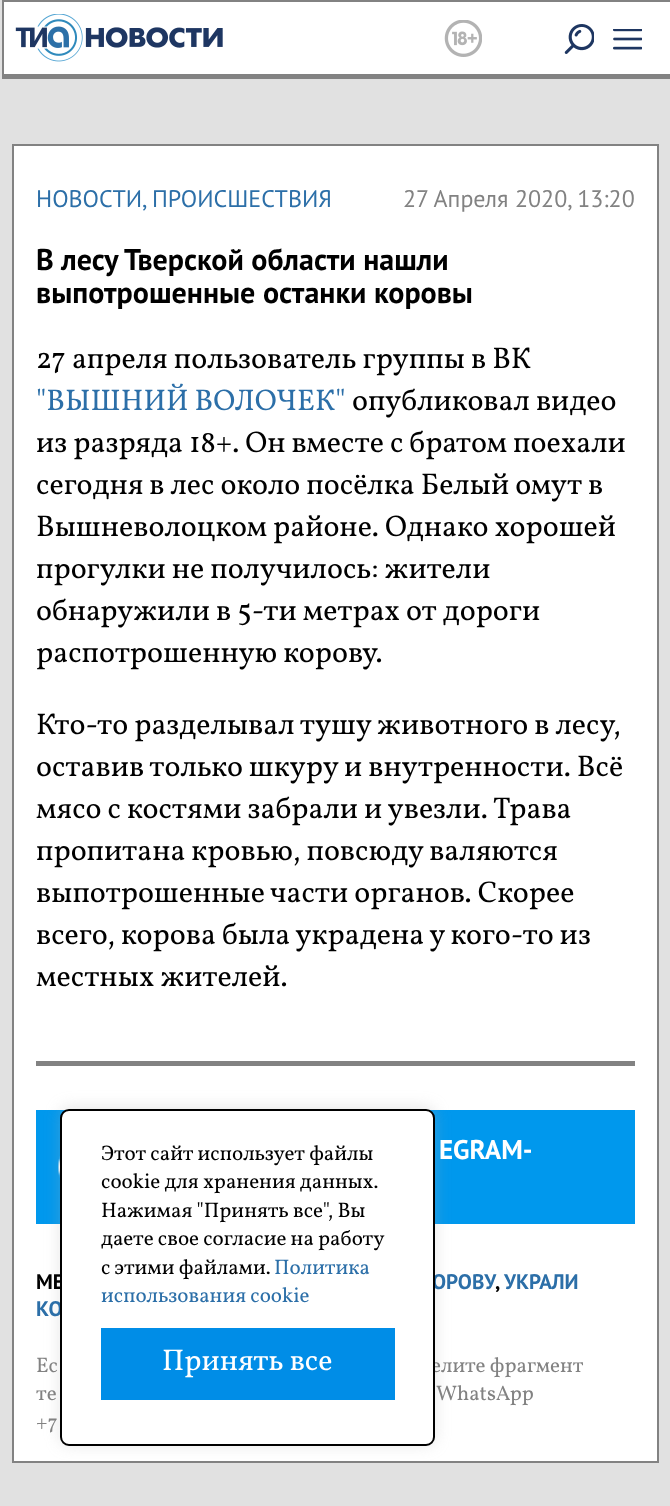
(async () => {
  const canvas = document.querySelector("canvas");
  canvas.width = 670;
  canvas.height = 1506;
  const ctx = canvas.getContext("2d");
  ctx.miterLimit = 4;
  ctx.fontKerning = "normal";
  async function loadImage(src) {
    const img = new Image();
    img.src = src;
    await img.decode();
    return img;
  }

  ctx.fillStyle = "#e1e1e1";
  ctx.fillRect(0, 0, 670, 1506);
  for (const [x, y, w, h, color] of [
    [4, 2, 666, 72, "#ffffff"],
    [2, 0, 668, 2, "#828282"],
    [2, 74, 668, 5, "#828282"],
    [2, 0, 2, 78, "#828282"],
  ]) {
    ctx.fillStyle = color;
    ctx.fillRect(x, y, w, h);
  }
  ctx.drawImage(await loadImage("img/1.png"), 15, 14, 208, 48);
  ctx.drawImage(await loadImage("img/2.png"), 444, 20, 38, 37);
  ctx.drawImage(await loadImage("img/3.png"), 564, 24, 30, 30);
  ctx.drawImage(await loadImage("img/4.png"), 613, 29, 29, 21);
  ctx.fillStyle = "#ffffff";
  ctx.beginPath();
  ctx.rect(13, 145, 645, 1317);
  ctx.fill();
  ctx.strokeStyle = "#828282";
  ctx.lineWidth = 2;
  ctx.stroke();
  ctx.fillStyle = "#828282";
  ctx.fillRect(36, 1061, 599, 5);
  ctx.fillStyle = "#0098ed";
  ctx.fillRect(36, 1110, 599, 114);
  ctx.drawImage(await loadImage("img/5.png"), 58, 1156, 2, 22);
  ctx.fillStyle = "rgba(172, 171, 171, 0.3)";
  ctx.filter = "blur(7.5px)";
  ctx.beginPath();
  ctx.roundRect(60, 1107, 375, 338, 9);
  ctx.fill();
  ctx.filter = "none";
  ctx.font = "24px PT Sans";
  ctx.fillStyle = "#2c6fa8";
  ctx.fillText("НОВОСТИ, ПРОИСШЕСТВИЯ", 36, 207);
  ctx.fillStyle = "#828282";
  ctx.fillText("27 Апреля 2020, 13:20", 403, 207);
  ctx.font = "bold 30px PT Sans";
  ctx.fillStyle = "#000000";
  ctx.fillText("В лесу Тверской области нашли", 36, 270);
  ctx.fillText("выпотрошенные останки коровы", 36, 303);
  ctx.font = "30px Vollkorn";
  ctx.fillText("27 апреля пользователь группы в ВК", 36, 368);
  ctx.fillStyle = "#2c6fa8";
  ctx.fillText("\"ВЫШНИЙ ВОЛОЧЕК\"", 36, 410);
  ctx.fillStyle = "#000000";
  for (const [text, x, y] of [
    ["опубликовал видео", 352, 410],
    ["из разряда 18+. Он вместе с братом поехали", 36, 452],
    ["сегодня в лес около посёлка Белый омут в", 36, 494],
    ["Вышневолоцком районе. Однако хорошей", 36, 536],
    ["прогулки не получилось: жители", 36, 578],
    ["обнаружили в 5-ти метрах от дороги", 36, 620],
    ["распотрошенную корову.", 36, 662],
    ["Кто-то разделывал тушу животного в лесу,", 36, 734],
    ["оставив только шкуру и внутренности. Всё", 36, 776],
    ["мясо с костями забрали и увезли. Трава", 36, 818],
    ["пропитана кровью, повсюду валяются", 36, 860],
    ["выпотрошенные части органов. Скорее", 36, 902],
    ["всего, корова была украдена у кого-то из", 36, 944],
    ["местных жителей.", 36, 986],
  ]) {
    ctx.fillText(text, x, y);
  }
  ctx.font = "bold 27px PT Sans";
  ctx.fillStyle = "#ffffff";
  ctx.fillText("EGRAM-", 439, 1159);
  ctx.font = "bold 21px PT Sans";
  ctx.fillStyle = "#000000";
  ctx.fillText("МЕ", 36, 1289);
  ctx.wordSpacing = "-1px";
  ctx.fillStyle = "#2c6fa8";
  ctx.fillText("ОРОВУ", 432, 1289);
  ctx.wordSpacing = "0px";
  ctx.fillStyle = "#000000";
  ctx.fillText(",", 495, 1289);
  ctx.fillStyle = "#2c6fa8";
  ctx.fillText("УКРАЛИ", 504, 1289);
  ctx.fillText("КО", 36, 1316);
  ctx.font = "21px Vollkorn";
  ctx.fillStyle = "#828282";
  for (const [text, x, y] of [
    ["Ес", 36, 1372],
    ["елите фрагмент", 431, 1372],
    ["те", 36, 1400],
    ["WhatsApp", 436, 1400],
    ["+7", 36, 1429],
  ]) {
    ctx.fillText(text, x, y);
  }
  ctx.fillStyle = "#ffffff";
  ctx.beginPath();
  ctx.roundRect(61, 1110, 373, 335, 8);
  ctx.fill();
  ctx.strokeStyle = "#000000";
  ctx.stroke();
  ctx.fillStyle = "#000000";
  for (const [text, x, y] of [
    ["Этот сайт использует файлы", 101, 1160],
    ["cookie для хранения данных.", 101, 1188],
    ["Нажимая \"Принять все\", Вы", 101, 1217],
    ["даете свое согласие на работу", 101, 1245],
    ["с этими файлами.", 101, 1274],
  ]) {
    ctx.fillText(text, x, y);
  }
  ctx.fillStyle = "#2c6fa8";
  ctx.fillText("Политика", 274, 1274);
  ctx.fillText("использования cookie", 101, 1302);
  ctx.fillStyle = "#008de7";
  ctx.fillRect(101, 1328, 294, 72);
  ctx.font = "30px Vollkorn";
  ctx.fillStyle = "#ffffff";
  ctx.fillText("Принять все", 162, 1370);
})();
